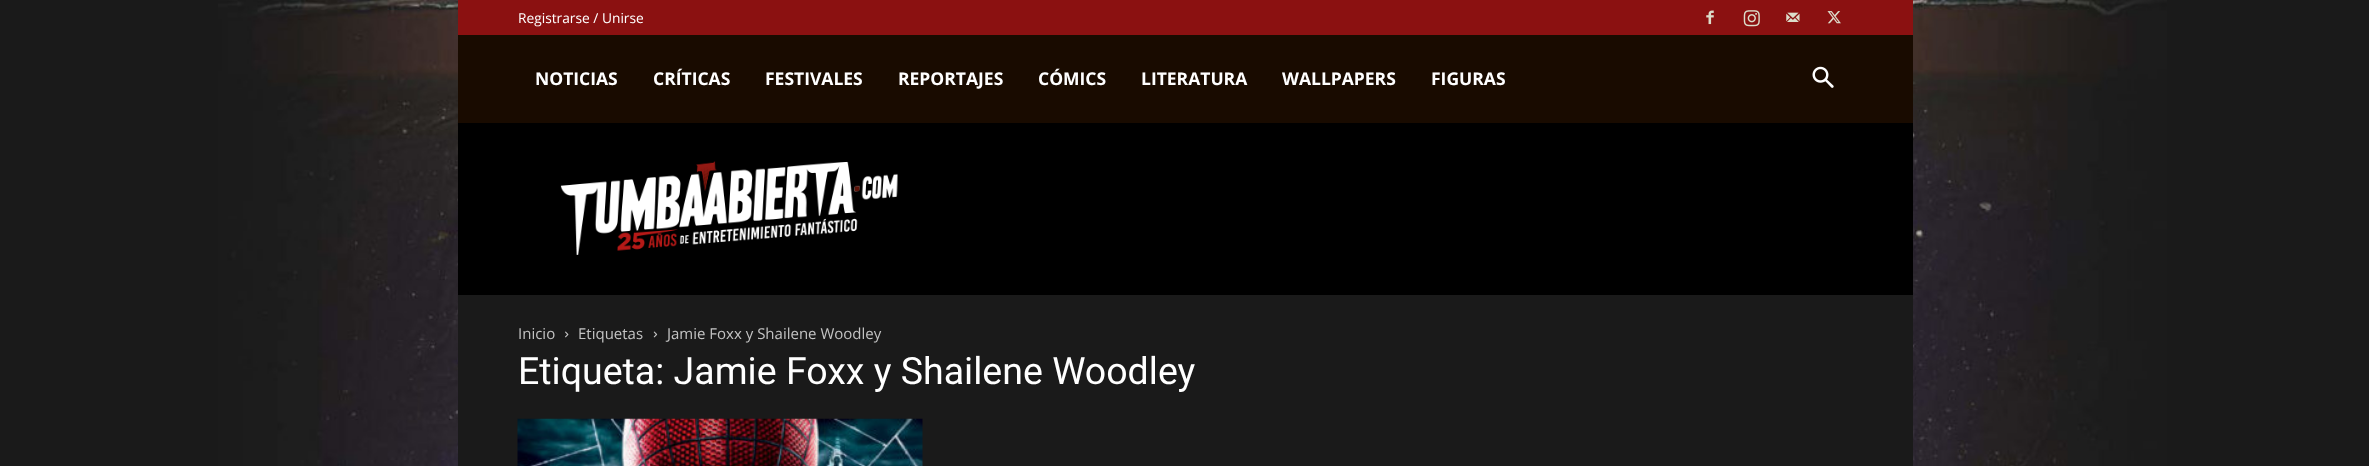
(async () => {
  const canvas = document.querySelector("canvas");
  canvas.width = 2369;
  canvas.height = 466;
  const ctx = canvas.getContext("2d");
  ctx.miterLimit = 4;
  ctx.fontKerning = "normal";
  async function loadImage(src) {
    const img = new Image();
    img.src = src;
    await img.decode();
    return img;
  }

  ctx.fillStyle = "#1a1a1a";
  ctx.fillRect(0, 0, 2369, 466);
  ctx.drawImage(await loadImage("img/1.png"), 218, 0, 1949, 466);
  ctx.fillStyle = "#8b1111";
  ctx.fillRect(458, 0, 1455, 35);
  ctx.drawImage(await loadImage("img/2.png"), 1706, 10, 8, 15);
  ctx.drawImage(await loadImage("img/3.png"), 1743, 10, 17, 17);
  ctx.drawImage(await loadImage("img/4.png"), 1786, 12, 14, 10);
  ctx.drawImage(await loadImage("img/5.png"), 1827, 11, 14, 13);
  ctx.fillStyle = "#190b00";
  ctx.fillRect(458, 35, 1455, 88);
  ctx.drawImage(await loadImage("img/6.png"), 1812, 66, 22, 22);
  ctx.fillStyle = "#000000";
  ctx.fillRect(458, 123, 1455, 172);
  ctx.drawImage(await loadImage("img/7.png"), 560, 161, 338, 94);
  ctx.fillStyle = "#1a1a1a";
  ctx.fillRect(458, 295, 1455, 171);
  ctx.drawImage(await loadImage("img/8.png"), 565, 331, 4, 7);
  ctx.drawImage(await loadImage("img/9.png"), 653, 331, 5, 7);
  ctx.drawImage(await loadImage("img/10.png"), 517, 418, 406, 48);
  ctx.font = "13.75px Open Sans";
  ctx.fillStyle = "#ffffff";
  ctx.fillText("Registrarse / Unirse", 518, 23);
  ctx.font = "bold 17.5px Open Sans";
  for (const [text, x, y] of [
    ["NOTICIAS", 535, 85],
    ["CRÍTICAS", 653, 85],
    ["FESTIVALES", 765, 85],
    ["REPORTAJES", 898, 85],
    ["CÓMICS", 1038, 85],
    ["LITERATURA", 1141, 85],
    ["WALLPAPERS", 1282, 85],
    ["FIGURAS", 1431, 85],
  ]) {
    ctx.fillText(text, x, y);
  }
  ctx.font = "15px Open Sans";
  ctx.fillStyle = "#c3c3c3";
  for (const [text, x, y] of [
    ["Inicio", 518, 339],
    ["Etiquetas", 578, 339],
    ["Jamie Foxx y Shailene Woodley", 667, 339],
  ]) {
    ctx.fillText(text, x, y);
  }
  ctx.font = "37.5px Roboto";
  ctx.fillStyle = "#ffffff";
  ctx.fillText("Etiqueta: Jamie Foxx y Shailene Woodley", 518, 384);
})();
